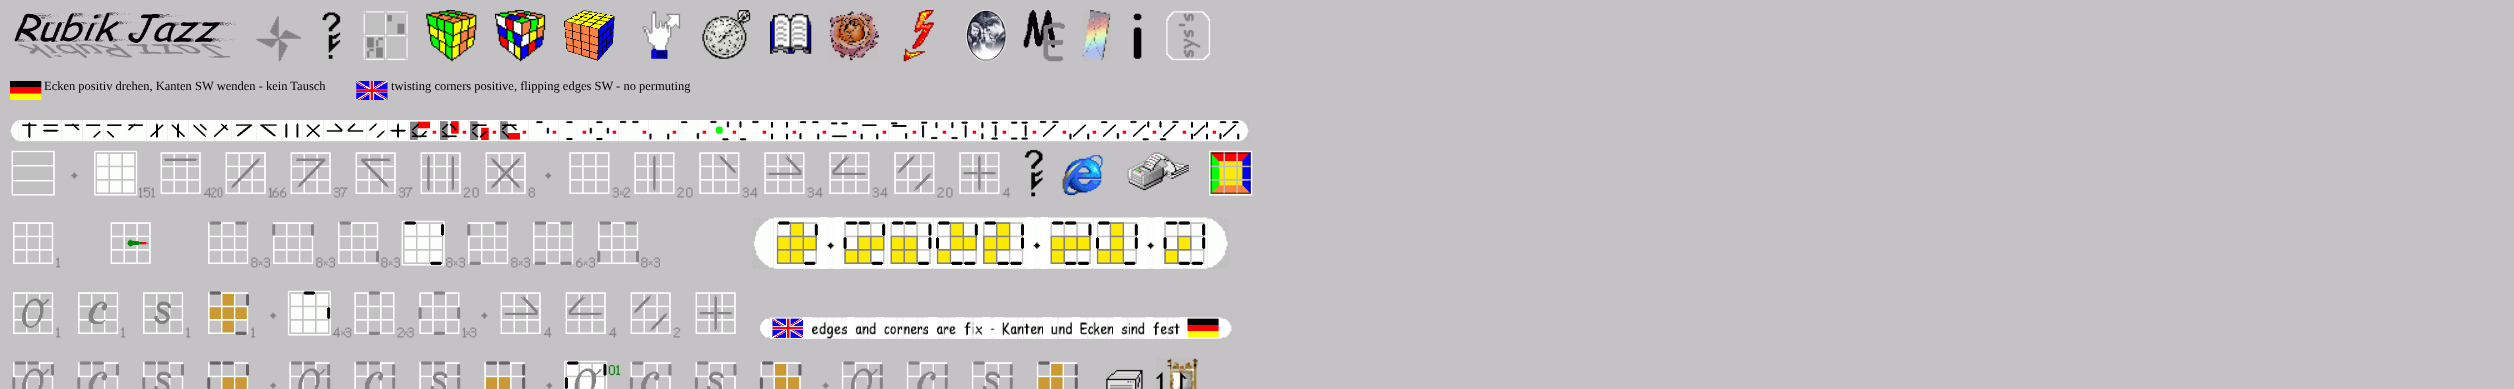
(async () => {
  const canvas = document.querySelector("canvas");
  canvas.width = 2514;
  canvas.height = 389;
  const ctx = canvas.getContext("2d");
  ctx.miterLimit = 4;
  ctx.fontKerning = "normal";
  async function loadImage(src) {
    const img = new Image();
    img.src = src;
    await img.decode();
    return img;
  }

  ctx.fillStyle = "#c4c2c4";
  ctx.fillRect(0, 0, 2514, 389);
  ctx.drawImage(await loadImage("img/1.png"), 14, 12, 222, 46);
  ctx.drawImage(await loadImage("img/2.png"), 256, 16, 46, 46);
  ctx.drawImage(await loadImage("img/3.png"), 322, 12, 19, 47);
  ctx.drawImage(await loadImage("img/4.png"), 363, 11, 45, 50);
  ctx.drawImage(await loadImage("img/5.png"), 426, 10, 51, 52);
  ctx.drawImage(await loadImage("img/6.png"), 495, 10, 51, 52);
  ctx.drawImage(await loadImage("img/7.png"), 564, 10, 51, 51);
  ctx.drawImage(await loadImage("img/8.png"), 642, 11, 39, 48);
  ctx.drawImage(await loadImage("img/9.png"), 702, 10, 49, 49);
  ctx.drawImage(await loadImage("img/10.png"), 770, 13, 42, 41);
  ctx.drawImage(await loadImage("img/11.png"), 829, 11, 50, 50);
  ctx.drawImage(await loadImage("img/12.png"), 903, 10, 31, 52);
  ctx.drawImage(await loadImage("img/13.png"), 966, 10, 41, 52);
  ctx.drawImage(await loadImage("img/14.png"), 1023, 10, 42, 52);
  ctx.drawImage(await loadImage("img/15.png"), 1082, 10, 29, 51);
  ctx.drawImage(await loadImage("img/16.png"), 1133, 13, 9, 46);
  ctx.drawImage(await loadImage("img/17.png"), 1166, 11, 45, 50);
  ctx.drawImage(await loadImage("img/18.png"), 10, 81, 32, 19);
  ctx.drawImage(await loadImage("img/19.png"), 356, 81, 32, 19);
  ctx.drawImage(await loadImage("img/20.png"), 10, 120, 9, 22);
  ctx.drawImage(await loadImage("img/21.png"), 18, 120, 22, 22);
  ctx.drawImage(await loadImage("img/22.png"), 40, 120, 22, 22);
  ctx.drawImage(await loadImage("img/23.png"), 61, 120, 22, 22);
  ctx.drawImage(await loadImage("img/24.png"), 82, 120, 22, 22);
  ctx.drawImage(await loadImage("img/25.png"), 104, 120, 21, 22);
  ctx.drawImage(await loadImage("img/26.png"), 125, 120, 22, 22);
  ctx.drawImage(await loadImage("img/27.png"), 146, 120, 22, 22);
  ctx.drawImage(await loadImage("img/28.png"), 167, 120, 22, 22);
  ctx.drawImage(await loadImage("img/29.png"), 189, 120, 21, 22);
  ctx.drawImage(await loadImage("img/30.png"), 210, 120, 22, 22);
  ctx.drawImage(await loadImage("img/31.png"), 231, 120, 26, 22);
  ctx.drawImage(await loadImage("img/32.png"), 256, 120, 26, 22);
  ctx.drawImage(await loadImage("img/33.png"), 281, 120, 22, 22);
  ctx.drawImage(await loadImage("img/34.png"), 302, 120, 22, 22);
  ctx.drawImage(await loadImage("img/35.png"), 324, 120, 21, 22);
  ctx.drawImage(await loadImage("img/36.png"), 345, 120, 22, 22);
  ctx.drawImage(await loadImage("img/37.png"), 366, 120, 22, 22);
  ctx.drawImage(await loadImage("img/38.png"), 387, 120, 22, 22);
  ctx.drawImage(await loadImage("img/39.png"), 409, 120, 21, 22);
  ctx.drawImage(await loadImage("img/40.png"), 430, 120, 9, 22);
  ctx.drawImage(await loadImage("img/41.png"), 439, 120, 21, 22);
  ctx.drawImage(await loadImage("img/40.png"), 460, 120, 9, 22);
  ctx.drawImage(await loadImage("img/42.png"), 469, 120, 21, 22);
  ctx.drawImage(await loadImage("img/40.png"), 490, 120, 9, 22);
  ctx.drawImage(await loadImage("img/43.png"), 499, 120, 21, 22);
  ctx.drawImage(await loadImage("img/40.png"), 520, 120, 9, 22);
  ctx.drawImage(await loadImage("img/44.png"), 529, 120, 21, 22);
  ctx.drawImage(await loadImage("img/40.png"), 550, 120, 9, 22);
  ctx.drawImage(await loadImage("img/45.png"), 559, 120, 21, 22);
  ctx.drawImage(await loadImage("img/40.png"), 580, 120, 9, 22);
  ctx.drawImage(await loadImage("img/46.png"), 589, 120, 21, 22);
  ctx.drawImage(await loadImage("img/40.png"), 610, 120, 9, 22);
  ctx.drawImage(await loadImage("img/47.png"), 619, 120, 21, 22);
  ctx.drawImage(await loadImage("img/40.png"), 640, 120, 9, 22);
  ctx.drawImage(await loadImage("img/48.png"), 649, 120, 21, 22);
  ctx.drawImage(await loadImage("img/40.png"), 670, 120, 9, 22);
  ctx.drawImage(await loadImage("img/49.png"), 679, 120, 21, 22);
  ctx.drawImage(await loadImage("img/40.png"), 700, 120, 9, 22);
  ctx.drawImage(await loadImage("img/50.png"), 709, 120, 21, 22);
  ctx.drawImage(await loadImage("img/40.png"), 730, 120, 9, 22);
  ctx.drawImage(await loadImage("img/51.png"), 739, 120, 21, 22);
  ctx.drawImage(await loadImage("img/40.png"), 760, 120, 9, 22);
  ctx.drawImage(await loadImage("img/52.png"), 769, 120, 21, 22);
  ctx.drawImage(await loadImage("img/40.png"), 790, 120, 9, 22);
  ctx.drawImage(await loadImage("img/53.png"), 799, 120, 21, 22);
  ctx.drawImage(await loadImage("img/40.png"), 820, 120, 9, 22);
  ctx.drawImage(await loadImage("img/54.png"), 829, 120, 21, 22);
  ctx.drawImage(await loadImage("img/40.png"), 850, 120, 9, 22);
  ctx.drawImage(await loadImage("img/55.png"), 859, 120, 21, 22);
  ctx.drawImage(await loadImage("img/40.png"), 880, 120, 9, 22);
  ctx.drawImage(await loadImage("img/56.png"), 889, 120, 21, 22);
  ctx.drawImage(await loadImage("img/40.png"), 910, 120, 9, 22);
  ctx.drawImage(await loadImage("img/57.png"), 919, 120, 21, 22);
  ctx.drawImage(await loadImage("img/40.png"), 940, 120, 9, 22);
  ctx.drawImage(await loadImage("img/58.png"), 949, 120, 21, 22);
  ctx.drawImage(await loadImage("img/40.png"), 970, 120, 9, 22);
  ctx.drawImage(await loadImage("img/59.png"), 979, 120, 21, 22);
  ctx.drawImage(await loadImage("img/40.png"), 1000, 120, 9, 22);
  ctx.drawImage(await loadImage("img/60.png"), 1009, 120, 21, 22);
  ctx.drawImage(await loadImage("img/40.png"), 1030, 120, 9, 22);
  ctx.drawImage(await loadImage("img/61.png"), 1039, 120, 21, 22);
  ctx.drawImage(await loadImage("img/40.png"), 1060, 120, 9, 22);
  ctx.drawImage(await loadImage("img/62.png"), 1069, 120, 21, 22);
  ctx.drawImage(await loadImage("img/40.png"), 1090, 120, 9, 22);
  ctx.drawImage(await loadImage("img/63.png"), 1099, 120, 21, 22);
  ctx.drawImage(await loadImage("img/40.png"), 1120, 120, 9, 22);
  ctx.drawImage(await loadImage("img/64.png"), 1129, 120, 21, 22);
  ctx.drawImage(await loadImage("img/40.png"), 1150, 120, 9, 22);
  ctx.drawImage(await loadImage("img/65.png"), 1159, 120, 21, 22);
  ctx.drawImage(await loadImage("img/40.png"), 1180, 120, 9, 22);
  ctx.drawImage(await loadImage("img/66.png"), 1189, 120, 21, 22);
  ctx.drawImage(await loadImage("img/40.png"), 1210, 120, 9, 22);
  ctx.drawImage(await loadImage("img/67.png"), 1219, 120, 21, 22);
  ctx.drawImage(await loadImage("img/68.png"), 1240, 120, 9, 22);
  ctx.drawImage(await loadImage("img/69.png"), 11, 150, 44, 46);
  ctx.drawImage(await loadImage("img/70.png"), 71, 172, 7, 7);
  ctx.drawImage(await loadImage("img/71.png"), 94, 150, 44, 46);
  ctx.drawImage(await loadImage("img/72.png"), 160, 152, 41, 42);
  ctx.drawImage(await loadImage("img/73.png"), 225, 152, 41, 42);
  ctx.drawImage(await loadImage("img/74.png"), 290, 152, 41, 42);
  ctx.drawImage(await loadImage("img/75.png"), 355, 152, 41, 42);
  ctx.drawImage(await loadImage("img/76.png"), 420, 152, 41, 42);
  ctx.drawImage(await loadImage("img/77.png"), 485, 152, 41, 42);
  ctx.drawImage(await loadImage("img/78.png"), 545, 172, 7, 7);
  ctx.drawImage(await loadImage("img/79.png"), 569, 152, 41, 42);
  ctx.drawImage(await loadImage("img/80.png"), 634, 152, 41, 42);
  ctx.drawImage(await loadImage("img/81.png"), 699, 152, 41, 42);
  ctx.drawImage(await loadImage("img/82.png"), 764, 152, 41, 42);
  ctx.drawImage(await loadImage("img/83.png"), 829, 152, 41, 42);
  ctx.drawImage(await loadImage("img/84.png"), 894, 152, 41, 42);
  ctx.drawImage(await loadImage("img/85.png"), 959, 152, 41, 42);
  ctx.drawImage(await loadImage("img/86.png"), 1024, 149, 19, 48);
  ctx.drawImage(await loadImage("img/87.png"), 1062, 154, 41, 42);
  ctx.drawImage(await loadImage("img/88.png"), 1127, 152, 62, 39);
  ctx.drawImage(await loadImage("img/89.png"), 1209, 150, 44, 46);
  ctx.drawImage(await loadImage("img/90.png"), 138, 187, 18, 11);
  ctx.drawImage(await loadImage("img/91.png"), 203, 187, 20, 11);
  ctx.drawImage(await loadImage("img/92.png"), 268, 187, 19, 11);
  ctx.drawImage(await loadImage("img/93.png"), 333, 187, 15, 11);
  ctx.drawImage(await loadImage("img/94.png"), 398, 187, 15, 11);
  ctx.drawImage(await loadImage("img/95.png"), 463, 187, 16, 11);
  ctx.drawImage(await loadImage("img/96.png"), 528, 187, 7, 11);
  ctx.drawImage(await loadImage("img/97.png"), 612, 187, 19, 11);
  ctx.drawImage(await loadImage("img/98.png"), 677, 187, 16, 11);
  ctx.drawImage(await loadImage("img/99.png"), 742, 187, 16, 11);
  ctx.drawImage(await loadImage("img/100.png"), 807, 187, 16, 11);
  ctx.drawImage(await loadImage("img/99.png"), 872, 187, 16, 11);
  ctx.drawImage(await loadImage("img/101.png"), 937, 187, 16, 11);
  ctx.drawImage(await loadImage("img/102.png"), 1002, 187, 9, 11);
  ctx.drawImage(await loadImage("img/103.png"), 13, 222, 41, 42);
  ctx.drawImage(await loadImage("img/104.png"), 56, 257, 5, 11);
  ctx.drawImage(await loadImage("img/105.png"), 110, 222, 41, 42);
  ctx.drawImage(await loadImage("img/106.png"), 208, 221, 41, 43);
  ctx.drawImage(await loadImage("img/107.png"), 251, 257, 19, 11);
  ctx.drawImage(await loadImage("img/108.png"), 272, 222, 42, 42);
  ctx.drawImage(await loadImage("img/107.png"), 316, 257, 19, 11);
  ctx.drawImage(await loadImage("img/109.png"), 338, 221, 41, 43);
  ctx.drawImage(await loadImage("img/107.png"), 381, 257, 19, 11);
  ctx.drawImage(await loadImage("img/110.png"), 401, 220, 44, 46);
  ctx.drawImage(await loadImage("img/107.png"), 446, 257, 19, 11);
  ctx.drawImage(await loadImage("img/111.png"), 467, 221, 42, 44);
  ctx.drawImage(await loadImage("img/107.png"), 511, 257, 19, 11);
  ctx.drawImage(await loadImage("img/112.png"), 533, 221, 41, 44);
  ctx.drawImage(await loadImage("img/113.png"), 576, 257, 19, 11);
  ctx.drawImage(await loadImage("img/114.png"), 597, 221, 42, 43);
  ctx.drawImage(await loadImage("img/107.png"), 641, 257, 19, 11);
  ctx.drawImage(await loadImage("img/115.png"), 752, 217, 22, 52);
  ctx.drawImage(await loadImage("img/116.png"), 773, 217, 47, 52);
  ctx.fillStyle = "#ffffff";
  ctx.fillRect(820, 217, 7, 52);
  ctx.drawImage(await loadImage("img/117.png"), 827, 217, 8, 52);
  ctx.fillRect(835, 217, 7, 52);
  ctx.drawImage(await loadImage("img/118.png"), 842, 217, 46, 52);
  ctx.drawImage(await loadImage("img/119.png"), 887, 217, 47, 52);
  ctx.drawImage(await loadImage("img/120.png"), 933, 217, 47, 52);
  ctx.drawImage(await loadImage("img/121.png"), 980, 217, 46, 52);
  ctx.fillRect(1026, 217, 7, 52);
  ctx.drawImage(await loadImage("img/122.png"), 1033, 217, 8, 52);
  ctx.fillRect(1041, 217, 7, 52);
  ctx.drawImage(await loadImage("img/123.png"), 1048, 217, 46, 52);
  ctx.drawImage(await loadImage("img/124.png"), 1093, 217, 47, 52);
  ctx.fillRect(1140, 217, 7, 52);
  ctx.drawImage(await loadImage("img/117.png"), 1147, 217, 8, 52);
  ctx.fillRect(1155, 217, 7, 52);
  ctx.drawImage(await loadImage("img/125.png"), 1162, 217, 46, 52);
  ctx.drawImage(await loadImage("img/126.png"), 1207, 217, 22, 52);
  ctx.drawImage(await loadImage("img/127.png"), 13, 292, 41, 42);
  ctx.drawImage(await loadImage("img/128.png"), 78, 292, 41, 42);
  ctx.drawImage(await loadImage("img/129.png"), 143, 292, 41, 42);
  ctx.drawImage(await loadImage("img/130.png"), 208, 291, 41, 44);
  ctx.drawImage(await loadImage("img/131.png"), 270, 312, 7, 7);
  ctx.drawImage(await loadImage("img/132.png"), 287, 290, 44, 46);
  ctx.drawImage(await loadImage("img/133.png"), 354, 291, 41, 44);
  ctx.drawImage(await loadImage("img/134.png"), 418, 291, 43, 44);
  ctx.drawImage(await loadImage("img/135.png"), 481, 312, 7, 7);
  ctx.drawImage(await loadImage("img/136.png"), 500, 292, 41, 42);
  ctx.drawImage(await loadImage("img/137.png"), 565, 292, 41, 42);
  ctx.drawImage(await loadImage("img/138.png"), 630, 292, 41, 42);
  ctx.drawImage(await loadImage("img/139.png"), 695, 292, 41, 42);
  ctx.drawImage(await loadImage("img/140.png"), 760, 317, 13, 22);
  ctx.drawImage(await loadImage("img/141.png"), 772, 317, 31, 22);
  ctx.fillRect(803, 317, 9, 22);
  ctx.drawImage(await loadImage("img/142.png"), 812, 317, 7, 22);
  ctx.drawImage(await loadImage("img/143.png"), 818, 317, 9, 22);
  ctx.drawImage(await loadImage("img/144.png"), 826, 317, 8, 22);
  ctx.drawImage(await loadImage("img/145.png"), 833, 317, 9, 22);
  ctx.drawImage(await loadImage("img/146.png"), 841, 317, 6, 22);
  ctx.fillRect(847, 317, 8, 22);
  ctx.drawImage(await loadImage("img/147.png"), 855, 317, 8, 22);
  ctx.drawImage(await loadImage("img/148.png"), 862, 317, 7, 22);
  ctx.drawImage(await loadImage("img/149.png"), 868, 317, 8, 22);
  ctx.fillRect(876, 317, 8, 22);
  ctx.drawImage(await loadImage("img/150.png"), 884, 317, 6, 22);
  ctx.drawImage(await loadImage("img/151.png"), 890, 317, 7, 22);
  ctx.drawImage(await loadImage("img/152.png"), 896, 317, 2, 22);
  ctx.drawImage(await loadImage("img/153.png"), 897, 317, 6, 22);
  ctx.drawImage(await loadImage("img/154.png"), 902, 317, 2, 22);
  ctx.drawImage(await loadImage("img/155.png"), 903, 317, 7, 22);
  ctx.drawImage(await loadImage("img/156.png"), 910, 317, 8, 22);
  ctx.drawImage(await loadImage("img/157.png"), 917, 317, 6, 22);
  ctx.drawImage(await loadImage("img/158.png"), 922, 317, 6, 22);
  ctx.fillRect(928, 317, 9, 22);
  ctx.drawImage(await loadImage("img/159.png"), 937, 317, 7, 22);
  ctx.drawImage(await loadImage("img/160.png"), 943, 317, 6, 22);
  ctx.drawImage(await loadImage("img/161.png"), 948, 317, 8, 22);
  ctx.fillRect(956, 317, 8, 22);
  ctx.drawImage(await loadImage("img/162.png"), 964, 317, 8, 22);
  ctx.drawImage(await loadImage("img/163.png"), 971, 317, 2, 22);
  ctx.drawImage(await loadImage("img/164.png"), 972, 317, 2, 22);
  ctx.drawImage(await loadImage("img/165.png"), 973, 317, 2, 22);
  ctx.drawImage(await loadImage("img/166.png"), 975, 317, 7, 22);
  ctx.fillRect(982, 317, 8, 22);
  ctx.drawImage(await loadImage("img/167.png"), 990, 317, 5, 22);
  ctx.fillRect(995, 317, 8, 22);
  ctx.drawImage(await loadImage("img/168.png"), 1002, 317, 8, 22);
  ctx.drawImage(await loadImage("img/147.png"), 1010, 317, 8, 22);
  ctx.drawImage(await loadImage("img/148.png"), 1017, 317, 7, 22);
  ctx.drawImage(await loadImage("img/169.png"), 1023, 317, 7, 22);
  ctx.drawImage(await loadImage("img/156.png"), 1030, 317, 8, 22);
  ctx.drawImage(await loadImage("img/170.png"), 1037, 317, 6, 22);
  ctx.fillRect(1043, 317, 9, 22);
  ctx.drawImage(await loadImage("img/171.png"), 1051, 317, 7, 22);
  ctx.drawImage(await loadImage("img/172.png"), 1057, 317, 2, 22);
  ctx.drawImage(await loadImage("img/155.png"), 1058, 317, 7, 22);
  ctx.drawImage(await loadImage("img/173.png"), 1065, 317, 7, 22);
  ctx.fillRect(1072, 317, 8, 22);
  ctx.drawImage(await loadImage("img/174.png"), 1080, 317, 8, 22);
  ctx.drawImage(await loadImage("img/175.png"), 1087, 317, 7, 22);
  ctx.drawImage(await loadImage("img/176.png"), 1093, 317, 7, 22);
  ctx.drawImage(await loadImage("img/177.png"), 1100, 317, 8, 22);
  ctx.drawImage(await loadImage("img/170.png"), 1107, 317, 6, 22);
  ctx.fillRect(1113, 317, 9, 22);
  ctx.drawImage(await loadImage("img/178.png"), 1121, 317, 7, 22);
  ctx.drawImage(await loadImage("img/179.png"), 1127, 317, 2, 22);
  ctx.drawImage(await loadImage("img/180.png"), 1128, 317, 2, 22);
  ctx.drawImage(await loadImage("img/181.png"), 1130, 317, 2, 22);
  ctx.drawImage(await loadImage("img/182.png"), 56, 327, 5, 11);
  ctx.drawImage(await loadImage("img/182.png"), 121, 327, 5, 11);
  ctx.drawImage(await loadImage("img/182.png"), 186, 327, 5, 11);
  ctx.drawImage(await loadImage("img/182.png"), 251, 327, 5, 11);
  ctx.drawImage(await loadImage("img/183.png"), 332, 327, 20, 11);
  ctx.drawImage(await loadImage("img/184.png"), 397, 327, 17, 11);
  ctx.drawImage(await loadImage("img/185.png"), 462, 327, 15, 11);
  ctx.drawImage(await loadImage("img/186.png"), 543, 327, 9, 11);
  ctx.drawImage(await loadImage("img/186.png"), 608, 327, 9, 11);
  ctx.drawImage(await loadImage("img/187.png"), 673, 327, 8, 11);
  ctx.drawImage(await loadImage("img/188.png"), 1131, 317, 7, 22);
  ctx.drawImage(await loadImage("img/189.png"), 1137, 317, 8, 22);
  ctx.fillRect(1145, 317, 8, 22);
  ctx.drawImage(await loadImage("img/190.png"), 1153, 317, 7, 22);
  ctx.drawImage(await loadImage("img/156.png"), 1160, 317, 8, 22);
  ctx.drawImage(await loadImage("img/191.png"), 1167, 317, 7, 22);
  ctx.drawImage(await loadImage("img/192.png"), 1173, 317, 7, 22);
  ctx.fillRect(1180, 317, 8, 22);
  ctx.drawImage(await loadImage("img/193.png"), 1187, 317, 32, 22);
  ctx.drawImage(await loadImage("img/194.png"), 1218, 317, 14, 22);
  ctx.drawImage(await loadImage("img/195.png"), 12, 361, 42, 28);
  ctx.drawImage(await loadImage("img/196.png"), 77, 361, 42, 28);
  ctx.drawImage(await loadImage("img/197.png"), 142, 361, 42, 28);
  ctx.drawImage(await loadImage("img/198.png"), 207, 361, 42, 28);
  ctx.drawImage(await loadImage("img/78.png"), 270, 382, 7, 7);
  ctx.drawImage(await loadImage("img/199.png"), 289, 361, 42, 28);
  ctx.drawImage(await loadImage("img/200.png"), 354, 361, 42, 28);
  ctx.drawImage(await loadImage("img/201.png"), 419, 361, 42, 28);
  ctx.drawImage(await loadImage("img/202.png"), 484, 361, 42, 28);
  ctx.drawImage(await loadImage("img/70.png"), 546, 382, 7, 7);
  ctx.drawImage(await loadImage("img/203.png"), 564, 360, 44, 29);
  ctx.drawImage(await loadImage("img/204.png"), 608, 364, 13, 12);
  ctx.drawImage(await loadImage("img/205.png"), 629, 361, 43, 28);
  ctx.drawImage(await loadImage("img/206.png"), 694, 361, 43, 28);
  ctx.drawImage(await loadImage("img/207.png"), 759, 361, 43, 28);
  ctx.drawImage(await loadImage("img/208.png"), 822, 382, 7, 7);
  ctx.drawImage(await loadImage("img/209.png"), 841, 361, 42, 28);
  ctx.drawImage(await loadImage("img/210.png"), 906, 361, 42, 28);
  ctx.drawImage(await loadImage("img/211.png"), 971, 361, 42, 28);
  ctx.drawImage(await loadImage("img/212.png"), 1036, 361, 42, 28);
  ctx.drawImage(await loadImage("img/213.png"), 1106, 369, 37, 20);
  ctx.drawImage(await loadImage("img/214.png"), 1156, 358, 42, 31);
  ctx.font = "12.5px Liberation Serif";
  ctx.fillStyle = "#000000";
  ctx.fillText("Ecken positiv drehen, Kanten SW wenden - kein Tausch", 44, 90);
  ctx.fillText("twisting corners positive, flipping edges SW - no permuting", 391, 90);
})();
